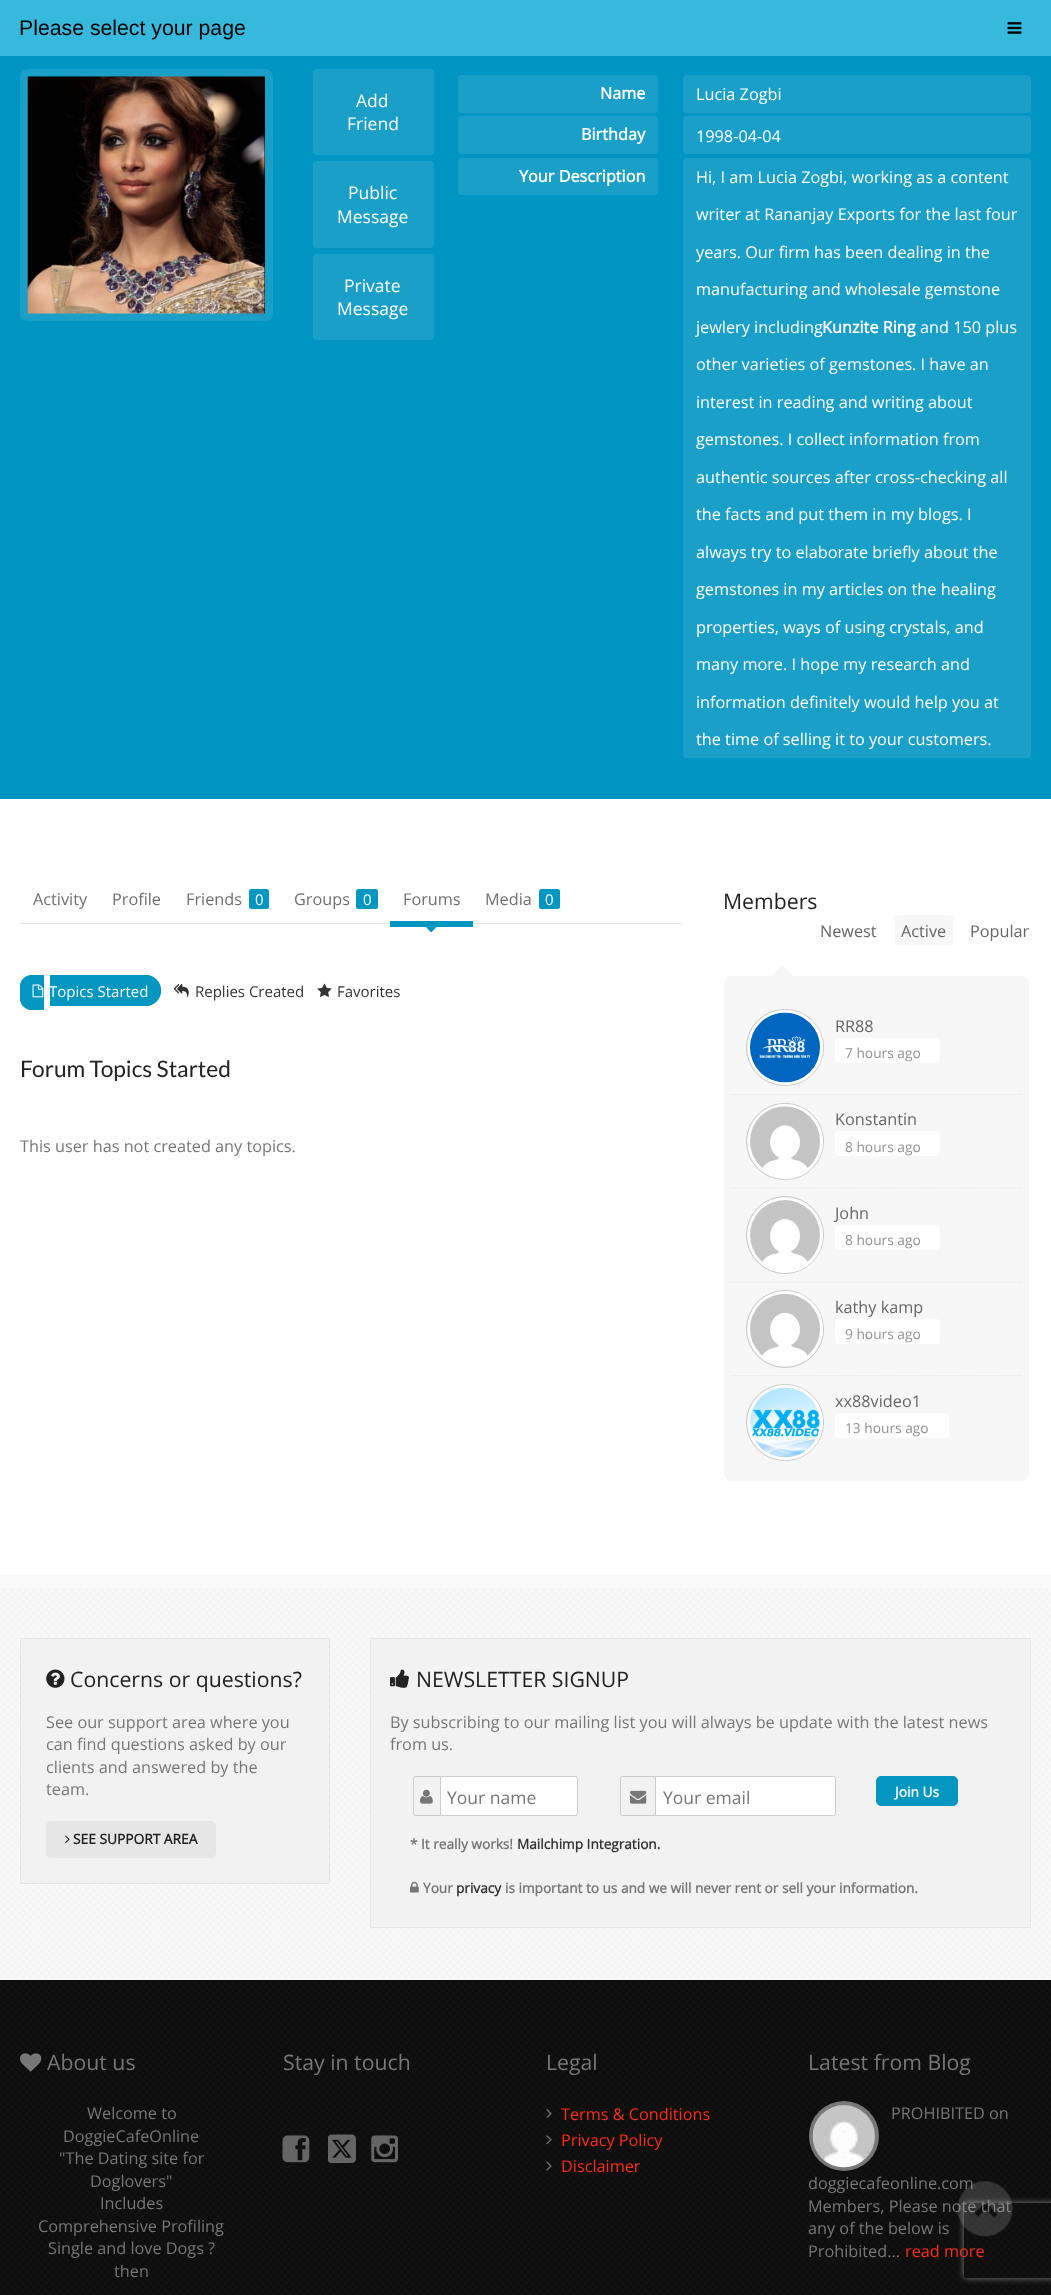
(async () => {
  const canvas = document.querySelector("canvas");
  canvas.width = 1051;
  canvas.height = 2295;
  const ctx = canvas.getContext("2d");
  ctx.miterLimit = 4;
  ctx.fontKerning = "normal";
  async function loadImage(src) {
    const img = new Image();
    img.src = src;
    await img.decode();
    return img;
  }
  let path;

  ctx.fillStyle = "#ffffff";
  ctx.fillRect(0, 0, 1051, 2295);
  ctx.fillStyle = "#37b8dd";
  ctx.fillRect(0, 0, 1051, 56);
  ctx.drawImage(await loadImage("img/1.png"), 1007, 22, 15, 12);
  ctx.fillStyle = "#0095c2";
  ctx.fillRect(0, 56, 1051, 743);
  ctx.beginPath();
  ctx.roundRect(24, 73, 245, 244, 4);
  ctx.strokeStyle = "#1aa0c8";
  ctx.lineWidth = 8;
  ctx.stroke();
  ctx.drawImage(await loadImage("img/2.png"), 27, 76, 238, 238);
  ctx.fillStyle = "#1aa0c8";
  ctx.beginPath();
  ctx.roundRect(313, 69, 121, 86, 4);
  ctx.fill();
  ctx.beginPath();
  ctx.roundRect(313, 161, 121, 87, 4);
  ctx.fill();
  ctx.beginPath();
  ctx.roundRect(313, 254, 121, 86, 4);
  ctx.fill();
  ctx.beginPath();
  ctx.roundRect(458, 75, 200, 38, 4);
  ctx.fill();
  ctx.beginPath();
  ctx.roundRect(683, 75, 348, 38, 4);
  ctx.fill();
  ctx.beginPath();
  ctx.roundRect(458, 116, 200, 38, 4);
  ctx.fill();
  ctx.beginPath();
  ctx.roundRect(683, 116, 348, 38, 4);
  ctx.fill();
  ctx.beginPath();
  ctx.roundRect(458, 158, 200, 37, 4);
  ctx.fill();
  ctx.fillStyle = "#1a9fc8";
  ctx.beginPath();
  ctx.roundRect(683, 158, 348, 600, 4);
  ctx.fill();
  ctx.fillStyle = "#e6e6e6";
  ctx.fillRect(20, 923, 661, 1);
  ctx.fillStyle = "#0296c0";
  ctx.beginPath();
  ctx.roundRect(249, 889, 20, 20, 2.5);
  ctx.fill();
  ctx.beginPath();
  ctx.roundRect(356, 889, 22, 20, 2.5);
  ctx.fill();
  ctx.fillRect(390, 921, 83, 6);
  path = new Path2D("M425 926H437.5L431 932.5Z");
  ctx.fill(path);
  ctx.beginPath();
  ctx.roundRect(539, 889, 21, 20, 2.5);
  ctx.fill();
  ctx.beginPath();
  ctx.roundRect(20, 975, 24, 35, [12, 0, 0, 12]);
  ctx.fill();
  path = new Path2D("M32 975H44V1010H32C25.5 1010 20 1004.5 20 998V987C20 980.5 25.5 975 32 975ZM32 976H44V1009H32C26 1009 21 1004 21 998V987C21 981 26 976 32 976Z");
  ctx.fill(path, "evenodd");
  ctx.beginPath();
  ctx.roundRect(50, 975, 111, 31, [0, 15.5, 15.5, 0]);
  ctx.fill();
  path = new Path2D("M50 975H146C154 975 161 982 161 991C161 999 154 1006 146 1006H50ZM50 976H146C154 976 160 983 160 991C160 999 154 1005 146 1005H50Z");
  ctx.fill(path, "evenodd");
  ctx.drawImage(await loadImage("img/3.png"), 32, 984, 12, 14);
  ctx.drawImage(await loadImage("img/4.png"), 173, 983, 16, 15);
  ctx.drawImage(await loadImage("img/5.png"), 317, 983, 15, 14);
  ctx.fillStyle = "#f7f7f7";
  ctx.beginPath();
  ctx.roundRect(895, 915, 58, 30, 4);
  ctx.fill();
  ctx.beginPath();
  ctx.roundRect(724, 976, 305, 505, 8);
  ctx.fill();
  path = new Path2D("M795 977.5H770L782.5 965Z");
  ctx.fill(path);
  path = new Path2D("M730 1094.5H1022.5");
  ctx.strokeStyle = "#e5e5e5";
  ctx.lineWidth = 1.2;
  ctx.setLineDash([1.25, 1.25]);
  ctx.stroke(path);
  ctx.beginPath();
  ctx.roundRect(746.5, 1009.5, 77, 76, 38);
  ctx.strokeStyle = "#c6c6c6";
  ctx.lineWidth = 1;
  ctx.setLineDash([]);
  ctx.stroke();
  ctx.beginPath();
  ctx.arc(785.5, 1047.5, 36, 0, Math.PI * 2);
  ctx.strokeStyle = "#ffffff";
  ctx.lineWidth = 3;
  ctx.stroke();
  ctx.drawImage(await loadImage("img/6.png"), 750, 1012, 70, 71);
  ctx.fillStyle = "#ffffff";
  ctx.beginPath();
  ctx.roundRect(835, 1038, 105, 25, 4);
  ctx.fill();
  path = new Path2D("M730 1188H1022.5");
  ctx.strokeStyle = "#e5e5e5";
  ctx.lineWidth = 1.2;
  ctx.setLineDash([1.25, 1.25]);
  ctx.stroke(path);
  ctx.beginPath();
  ctx.roundRect(746.5, 1103.5, 77, 76, 38);
  ctx.strokeStyle = "#c6c6c6";
  ctx.lineWidth = 1;
  ctx.setLineDash([]);
  ctx.stroke();
  ctx.beginPath();
  ctx.arc(785.5, 1141.5, 36, 0, Math.PI * 2);
  ctx.strokeStyle = "#ffffff";
  ctx.lineWidth = 3;
  ctx.stroke();
  ctx.drawImage(await loadImage("img/7.png"), 750, 1106, 70, 70);
  ctx.beginPath();
  ctx.roundRect(835, 1131, 105, 25, 4);
  ctx.fill();
  path = new Path2D("M730 1282H1022.5");
  ctx.strokeStyle = "#e5e5e5";
  ctx.lineWidth = 1.2;
  ctx.setLineDash([1.25, 1.25]);
  ctx.stroke(path);
  ctx.beginPath();
  ctx.arc(785, 1235, 38.5, 0, Math.PI * 2);
  ctx.strokeStyle = "#c6c6c6";
  ctx.lineWidth = 1;
  ctx.setLineDash([]);
  ctx.stroke();
  ctx.beginPath();
  ctx.arc(785.5, 1235.5, 36, 0, Math.PI * 2);
  ctx.strokeStyle = "#ffffff";
  ctx.lineWidth = 3;
  ctx.stroke();
  ctx.drawImage(await loadImage("img/8.png"), 750, 1200, 70, 70);
  ctx.beginPath();
  ctx.roundRect(835, 1225, 105, 25, 4);
  ctx.fill();
  path = new Path2D("M730 1375.5H1022.5");
  ctx.strokeStyle = "#e5e5e5";
  ctx.lineWidth = 1.2;
  ctx.setLineDash([1.25, 1.25]);
  ctx.stroke(path);
  ctx.beginPath();
  ctx.arc(785, 1329, 38.5, 0, Math.PI * 2);
  ctx.strokeStyle = "#c6c6c6";
  ctx.lineWidth = 1;
  ctx.setLineDash([]);
  ctx.stroke();
  ctx.beginPath();
  ctx.arc(785.5, 1328.5, 36, 0, Math.PI * 2);
  ctx.strokeStyle = "#ffffff";
  ctx.lineWidth = 3;
  ctx.stroke();
  ctx.drawImage(await loadImage("img/9.png"), 750, 1294, 70, 69);
  ctx.beginPath();
  ctx.roundRect(835, 1319, 105, 25, 4);
  ctx.fill();
  ctx.beginPath();
  ctx.roundRect(746.5, 1384.5, 77, 76, 38);
  ctx.strokeStyle = "#c6c6c6";
  ctx.lineWidth = 1;
  ctx.stroke();
  ctx.beginPath();
  ctx.arc(785.5, 1422.5, 36, 0, Math.PI * 2);
  ctx.strokeStyle = "#ffffff";
  ctx.lineWidth = 3;
  ctx.stroke();
  ctx.drawImage(await loadImage("img/10.png"), 750, 1387, 70, 71);
  ctx.beginPath();
  ctx.roundRect(835, 1413, 114, 25, 4);
  ctx.fill();
  ctx.drawImage(await loadImage("img/11.png"), 0, 1588, 1051, 392);
  ctx.fillStyle = "#fafafa";
  ctx.fillRect(0, 1575, 1051, 13);
  ctx.fillStyle = "#f2f2f2";
  ctx.beginPath();
  ctx.rect(20.5, 1638.5, 309, 245);
  ctx.fill();
  ctx.strokeStyle = "#e6e6e6";
  ctx.lineWidth = 1;
  ctx.stroke();
  ctx.drawImage(await loadImage("img/12.png"), 46, 1669, 19, 19);
  ctx.fillStyle = "#e6e6e6";
  ctx.beginPath();
  ctx.roundRect(46.5, 1821.5, 169, 36, 4.5);
  ctx.fill();
  ctx.stroke();
  ctx.drawImage(await loadImage("img/13.png"), 65, 1835, 5, 9);
  ctx.fillStyle = "#f2f2f2";
  ctx.beginPath();
  ctx.rect(370.5, 1638.5, 660, 289);
  ctx.fill();
  ctx.stroke();
  ctx.drawImage(await loadImage("img/14.png"), 390, 1669, 19, 19);
  ctx.fillStyle = "#ffffff";
  ctx.beginPath();
  ctx.roundRect(439.5, 1776.5, 138, 39, 2);
  ctx.fill();
  ctx.strokeStyle = "#cccccc";
  ctx.stroke();
  ctx.fillStyle = "#f2f2f2";
  ctx.beginPath();
  ctx.roundRect(413.5, 1776.5, 27, 39, [2, 0, 0, 2]);
  ctx.fill();
  ctx.stroke();
  ctx.drawImage(await loadImage("img/15.png"), 420, 1789, 13, 15);
  ctx.fillStyle = "#ffffff";
  ctx.beginPath();
  ctx.roundRect(654.5, 1776.5, 181, 39, 2);
  ctx.fill();
  ctx.stroke();
  ctx.fillStyle = "#f2f2f2";
  ctx.beginPath();
  ctx.roundRect(620.5, 1776.5, 35, 39, [2, 0, 0, 2]);
  ctx.fill();
  ctx.stroke();
  ctx.drawImage(await loadImage("img/16.png"), 630, 1790, 17, 14);
  ctx.fillStyle = "#0296c0";
  ctx.beginPath();
  ctx.roundRect(876.5, 1776.5, 81, 29, 4.5);
  ctx.fill();
  ctx.strokeStyle = "#0296c0";
  ctx.stroke();
  ctx.drawImage(await loadImage("img/17.png"), 410, 1881, 9, 12);
  ctx.drawImage(await loadImage("img/18.png"), 0, 1980, 1051, 315);
  ctx.drawImage(await loadImage("img/19.png"), 20, 2053, 22, 19);
  ctx.drawImage(await loadImage("img/20.png"), 282, 2135, 28, 28);
  ctx.drawImage(await loadImage("img/21.png"), 328, 2134, 28, 29);
  ctx.drawImage(await loadImage("img/22.png"), 371, 2135, 27, 28);
  ctx.drawImage(await loadImage("img/23.png"), 546, 2109, 6, 9);
  ctx.drawImage(await loadImage("img/24.png"), 546, 2135, 6, 10);
  ctx.drawImage(await loadImage("img/25.png"), 546, 2161, 6, 10);
  ctx.fillStyle = "#777777";
  ctx.beginPath();
  ctx.arc(844, 2136, 35, 0, Math.PI * 2);
  ctx.fill();
  ctx.drawImage(await loadImage("img/26.png"), 812, 2105, 63, 63);
  ctx.save();
  path = new Path2D("M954 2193H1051V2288H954ZM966.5 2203H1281.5C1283 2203 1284 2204 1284 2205.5V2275.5C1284 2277 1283 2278 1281.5 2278H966.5C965 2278 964 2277 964 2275.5V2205.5C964 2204 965 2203 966.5 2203Z");
  ctx.clip(path, "evenodd");
  ctx.fillStyle = "#808080";
  ctx.filter = "blur(3px)";
  ctx.beginPath();
  ctx.roundRect(964, 2203, 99, 75, 2.5);
  ctx.fill();
  ctx.filter = "none";
  ctx.restore();
  ctx.font = "21.25px Liberation Sans";
  ctx.fillStyle = "#000000";
  ctx.fillText("Please select your page", 19, 35);
  ctx.font = "17.5px Open Sans";
  ctx.fillStyle = "#ffffff";
  for (const [text, x, y] of [
    ["Add", 356, 107],
    ["Friend", 347, 130],
    ["Public", 348, 199],
    ["Message", 337, 223],
    ["Private", 344, 292],
    ["Message", 337, 315],
  ]) {
    ctx.fillText(text, x, y);
  }
  ctx.font = "bold 16.25px Open Sans";
  ctx.fillText("Name", 600, 99);
  ctx.font = "16.25px Open Sans";
  ctx.fillText("Lucia Zogbi", 696, 100);
  ctx.font = "bold 16.25px Open Sans";
  ctx.fillText("Birthday", 581, 140);
  ctx.font = "16.25px Open Sans";
  ctx.fillText("1998-04-04", 696, 142);
  ctx.font = "bold 16.25px Open Sans";
  ctx.fillText("Your Description", 519, 182);
  ctx.font = "16.25px Open Sans";
  for (const [text, x, y] of [
    ["Hi, I am Lucia Zogbi, working as a content", 696, 183],
    ["writer at Rananjay Exports for the last four", 696, 220],
    ["years. Our firm has been dealing in the", 696, 258],
    ["manufacturing and wholesale gemstone", 696, 295],
    ["jewlery including", 696, 333],
  ]) {
    ctx.fillText(text, x, y);
  }
  ctx.font = "bold 16.25px Open Sans";
  ctx.fillText("Kunzite Ring", 822, 333);
  ctx.font = "16.25px Open Sans";
  for (const [text, x, y] of [
    ["and 150 plus", 920, 333],
    ["other varieties of gemstones. I have an", 696, 370],
    ["interest in reading and writing about", 696, 408],
    ["gemstones. I collect information from", 696, 445],
    ["authentic sources after cross-checking all", 696, 483],
    ["the facts and put them in my blogs. I", 696, 520],
    ["always try to elaborate briefly about the", 696, 558],
    ["gemstones in my articles on the healing", 696, 595],
    ["properties, ways of using crystals, and", 696, 633],
    ["many more. I hope my research and", 696, 670],
    ["information definitely would help you at", 696, 708],
    ["the time of selling it to your customers.", 696, 745],
  ]) {
    ctx.fillText(text, x, y);
  }
  ctx.fillStyle = "#6f6f6f";
  for (const [text, x, y] of [
    ["Activity", 33, 905],
    ["Profile", 112, 905],
    ["Friends", 186, 905],
  ]) {
    ctx.fillText(text, x, y);
  }
  ctx.font = "15px Open Sans";
  ctx.fillStyle = "#ffffff";
  ctx.fillText("0", 255, 905);
  ctx.font = "16.25px Open Sans";
  ctx.fillStyle = "#6f6f6f";
  ctx.fillText("Groups", 294, 905);
  ctx.font = "15px Open Sans";
  ctx.fillStyle = "#ffffff";
  ctx.fillText("0", 363, 905);
  ctx.font = "16.25px Open Sans";
  ctx.fillStyle = "#6f6f6f";
  ctx.fillText("Forums", 403, 905);
  ctx.fillText("Media", 485, 905);
  ctx.font = "15px Open Sans";
  ctx.fillStyle = "#ffffff";
  ctx.fillText("0", 545, 905);
  ctx.fillText("Topics Started", 49, 997);
  ctx.fillStyle = "#333333";
  ctx.fillText("Replies Created", 195, 997);
  ctx.fillText("Favorites", 337, 997);
  ctx.font = "22.75px Lato";
  ctx.fillStyle = "#222222";
  ctx.fillText("Forum Topics Started", 20, 1077);
  ctx.font = "16.25px Open Sans";
  ctx.fillStyle = "#777777";
  ctx.fillText("This user has not created any topics.", 20, 1152);
  ctx.font = "21.25px Open Sans";
  ctx.fillStyle = "#222222";
  ctx.fillText("Members", 723, 909);
  ctx.font = "16.25px Open Sans";
  ctx.fillStyle = "#666666";
  for (const [text, x, y] of [
    ["Newest", 820, 937],
    ["Active", 901, 937],
    ["Popular", 970, 937],
    ["RR88", 835, 1032],
  ]) {
    ctx.fillText(text, x, y);
  }
  ctx.font = "13.75px Open Sans";
  ctx.fillStyle = "#929292";
  ctx.fillText("7 hours ago", 845, 1058);
  ctx.font = "16.25px Open Sans";
  ctx.fillStyle = "#666666";
  ctx.fillText("Konstantin", 835, 1125);
  ctx.font = "13.75px Open Sans";
  ctx.fillStyle = "#929292";
  ctx.fillText("8 hours ago", 845, 1152);
  ctx.font = "16.25px Open Sans";
  ctx.fillStyle = "#666666";
  ctx.fillText("John", 835, 1219);
  ctx.font = "13.75px Open Sans";
  ctx.fillStyle = "#929292";
  ctx.fillText("8 hours ago", 845, 1245);
  ctx.font = "16.25px Open Sans";
  ctx.fillStyle = "#666666";
  ctx.fillText("kathy kamp", 835, 1313);
  ctx.font = "13.75px Open Sans";
  ctx.fillStyle = "#929292";
  ctx.fillText("9 hours ago", 845, 1339);
  ctx.font = "16.25px Open Sans";
  ctx.fillStyle = "#666666";
  ctx.fillText("xx88video1", 835, 1407);
  ctx.font = "13.75px Open Sans";
  ctx.fillStyle = "#929292";
  ctx.fillText("13 hours ago", 845, 1433);
  ctx.font = "21.25px Open Sans";
  ctx.fillStyle = "#222222";
  ctx.fillText("Concerns or questions?", 70, 1687);
  ctx.font = "16.25px Open Sans";
  ctx.fillStyle = "#777777";
  for (const [text, x, y] of [
    ["See our support area where you", 46, 1728],
    ["can find questions asked by our", 46, 1750],
    ["clients and answered by the", 46, 1773],
    ["team.", 46, 1795],
  ]) {
    ctx.fillText(text, x, y);
  }
  ctx.font = "bold 13.75px Open Sans";
  ctx.fillStyle = "#222222";
  ctx.fillText("SEE SUPPORT AREA", 73, 1844);
  ctx.font = "21.25px Open Sans";
  ctx.fillText("NEWSLETTER SIGNUP", 416, 1687);
  ctx.font = "16.25px Open Sans";
  ctx.fillStyle = "#777777";
  ctx.fillText("By subscribing to our mailing list you will always be update with the latest news", 390, 1728);
  ctx.fillText("from us.", 390, 1750);
  ctx.font = "17.5px Open Sans";
  ctx.fillText("Your name", 447, 1804);
  ctx.fillText("Your email", 663, 1804);
  ctx.font = "bold 13.75px Open Sans";
  ctx.fillStyle = "#ffffff";
  ctx.fillText("Join Us", 895, 1797);
  ctx.font = "bold 13.65px Open Sans";
  ctx.fillStyle = "#777777";
  ctx.fillText("* It really works!", 410, 1849);
  ctx.fillStyle = "#333333";
  ctx.fillText("Mailchimp Integration.", 517, 1849);
  ctx.fillStyle = "#777777";
  ctx.fillText("Your", 423, 1893);
  ctx.fillStyle = "#333333";
  ctx.fillText("privacy", 456, 1893);
  ctx.fillStyle = "#777777";
  ctx.fillText("is important to us and we will never rent or sell your information.", 505, 1893);
  ctx.font = "21.25px Open Sans";
  ctx.fillText("About us", 47, 2070);
  ctx.font = "16.25px Open Sans";
  for (const [text, x, y] of [
    ["Welcome to", 87, 2119],
    ["DoggieCafeOnline", 63, 2142],
    ["\"The Dating site for", 59, 2164],
    ["Doglovers\"", 90, 2187],
    ["Includes", 100, 2209],
    ["Comprehensive Profiling", 38, 2232],
    ["Single and love Dogs ?", 48, 2254],
    ["then", 114, 2277],
  ]) {
    ctx.fillText(text, x, y);
  }
  ctx.font = "21.25px Open Sans";
  ctx.fillText("Stay in touch", 283, 2070);
  ctx.fillText("Legal", 546, 2070);
  ctx.font = "16.25px Open Sans";
  ctx.fillStyle = "#fe2d13";
  for (const [text, x, y] of [
    ["Terms & Conditions", 561, 2120],
    ["Privacy Policy", 561, 2146],
    ["Disclaimer", 561, 2172],
  ]) {
    ctx.fillText(text, x, y);
  }
  ctx.font = "21.25px Open Sans";
  ctx.fillStyle = "#777777";
  ctx.fillText("Latest from Blog", 808, 2070);
  ctx.font = "16.25px Open Sans";
  for (const [text, x, y] of [
    ["PROHIBITED on", 891, 2119],
    ["doggiecafeonline.com", 808, 2189],
    ["Members, Please note that", 808, 2212],
    ["any of the below is", 808, 2234],
    ["Prohibited...", 808, 2257],
  ]) {
    ctx.fillText(text, x, y);
  }
  ctx.fillStyle = "#fe2d13";
  ctx.fillText("read more", 905, 2257);
  ctx.drawImage(await loadImage("img/27.png"), 957, 2181, 56, 56);
})();
